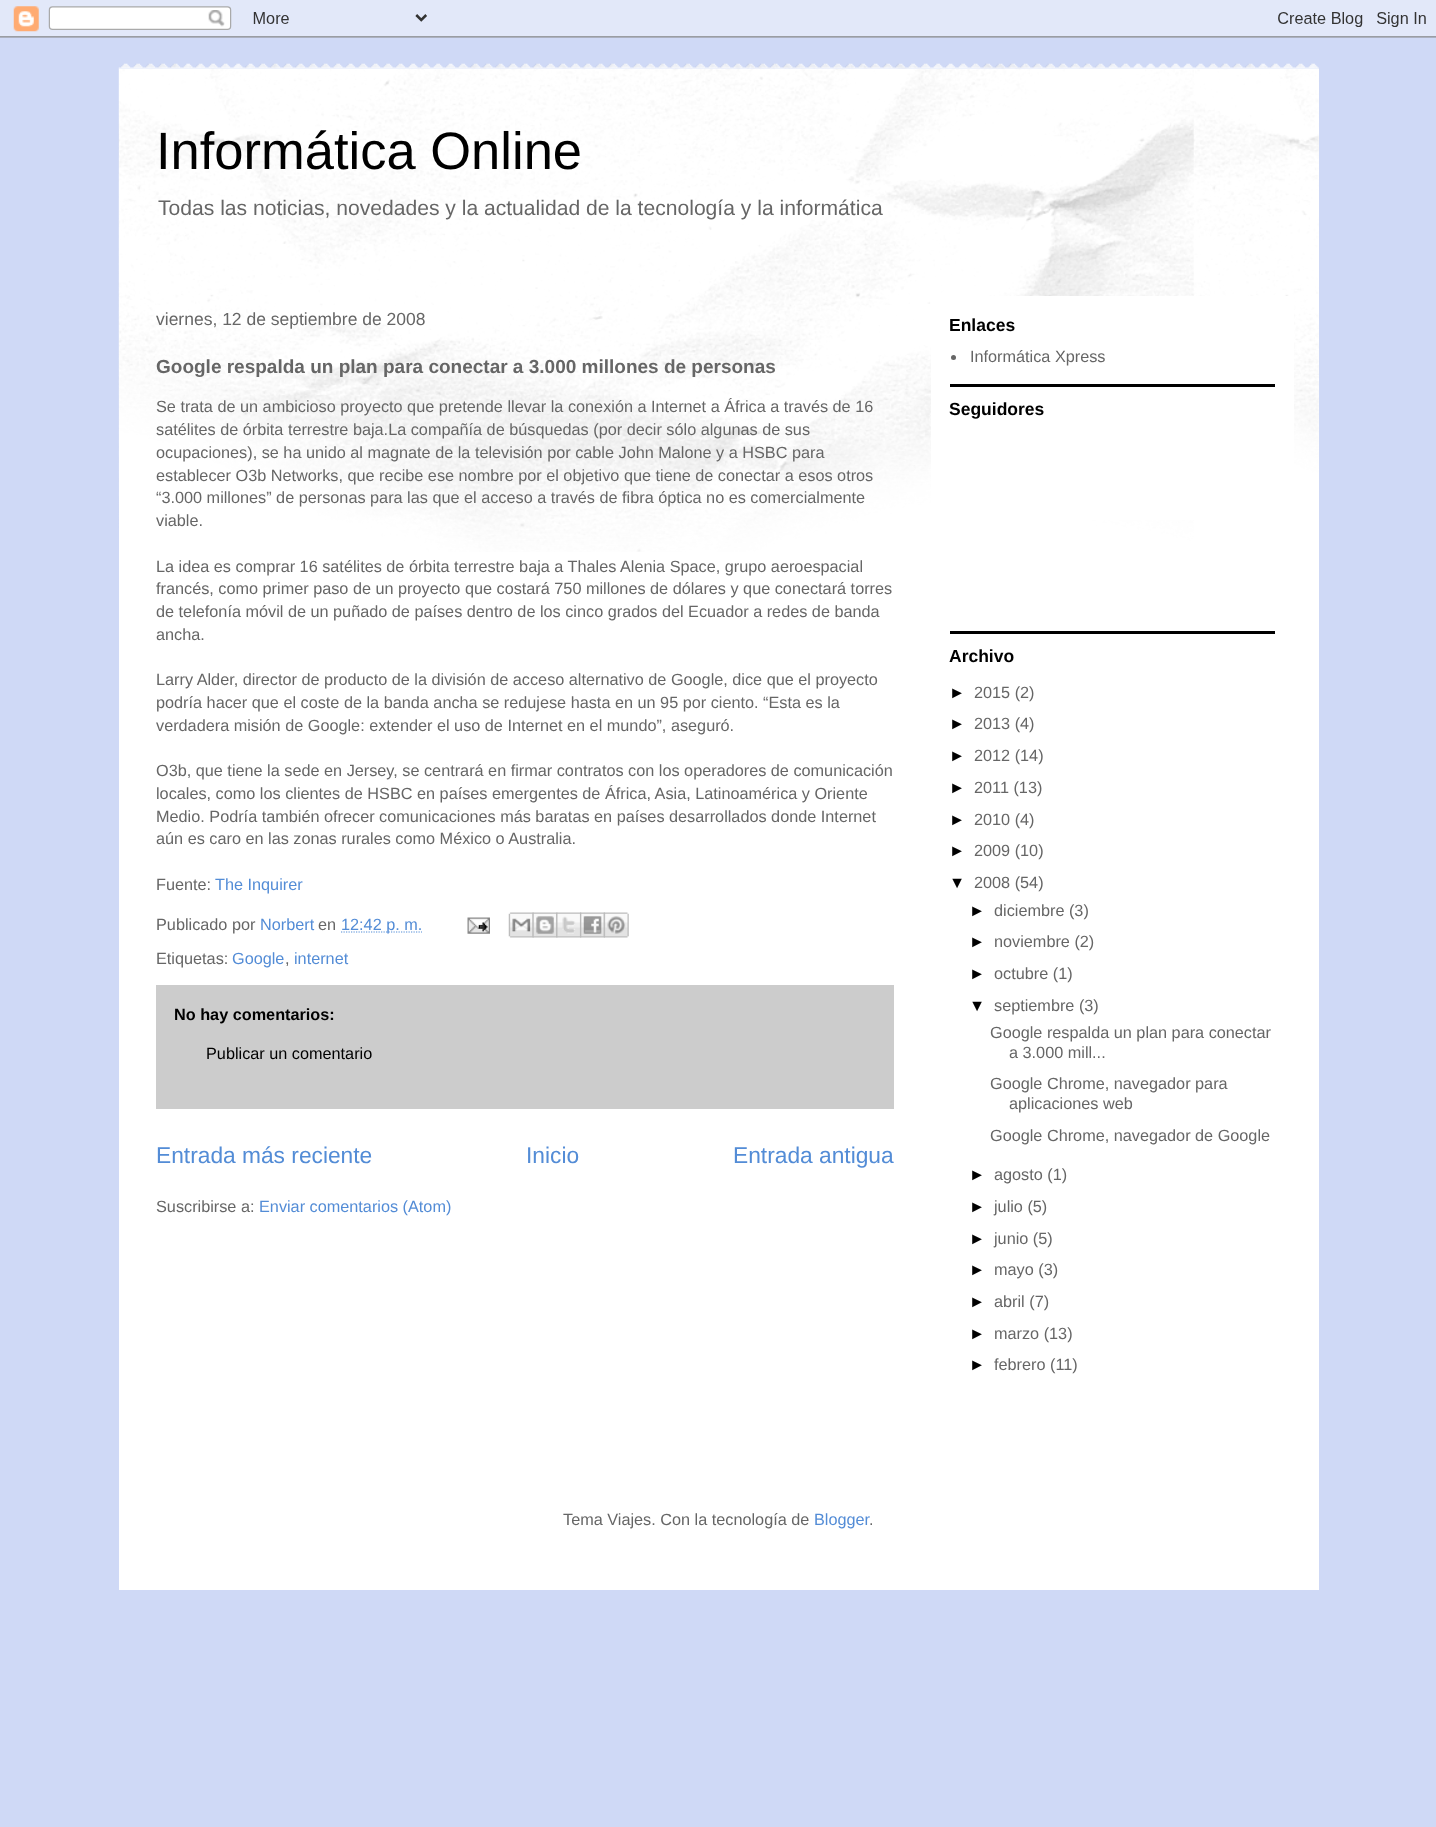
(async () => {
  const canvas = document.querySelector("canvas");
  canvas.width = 1436;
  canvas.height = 1827;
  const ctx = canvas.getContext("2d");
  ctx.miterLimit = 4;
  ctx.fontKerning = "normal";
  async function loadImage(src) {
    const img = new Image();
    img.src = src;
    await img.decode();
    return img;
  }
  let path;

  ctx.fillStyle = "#cfd9f6";
  ctx.fillRect(0, 0, 1436, 1827);
  ctx.drawImage(await loadImage("img/1.png"), 0, 0, 1436, 38);
  ctx.drawImage(await loadImage("img/2.png"), 118, 63, 1201, 6);
  ctx.fillStyle = "#ffffff";
  ctx.fillRect(119, 69, 1200, 1521);
  ctx.drawImage(await loadImage("img/3.png"), 118, 68, 1201, 484);
  ctx.fillRect(931, 296, 363, 224);
  path = new Path2D("M341 932H422");
  ctx.strokeStyle = "#538cd6";
  ctx.lineWidth = 1.2;
  ctx.setLineDash([1.25, 1.25]);
  ctx.stroke(path);
  ctx.drawImage(await loadImage("img/4.png"), 467, 917, 23, 17);
  ctx.drawImage(await loadImage("img/5.png"), 508, 912, 26, 26);
  ctx.drawImage(await loadImage("img/6.png"), 532, 912, 26, 26);
  ctx.drawImage(await loadImage("img/7.png"), 556, 912, 26, 26);
  ctx.drawImage(await loadImage("img/8.png"), 580, 912, 25, 26);
  ctx.drawImage(await loadImage("img/9.png"), 603, 912, 26, 26);
  ctx.fillStyle = "#cccccc";
  ctx.fillRect(156, 985, 738, 124);
  ctx.fillStyle = "#000000";
  ctx.fillRect(950, 384, 325, 3);
  ctx.fillStyle = "#666666";
  ctx.beginPath();
  ctx.arc(953.5, 357.5, 2.5, 0, Math.PI * 2);
  ctx.fill();
  ctx.fillStyle = "#000000";
  ctx.fillRect(950, 631, 325, 3);
  ctx.font = "52.5px Liberation Sans";
  ctx.fillText("Informática Online", 156, 169);
  ctx.font = "21.1px Liberation Sans";
  ctx.fillStyle = "#666666";
  ctx.fillText("Todas las noticias, novedades y la actualidad de la tecnología y la informática", 158, 215);
  ctx.font = "17.5px Liberation Sans";
  ctx.fillText("viernes, 12 de septiembre de 2008", 156, 325);
  ctx.font = "bold 19px Liberation Sans";
  ctx.fillText("Google respalda un plan para conectar a 3.000 millones de personas", 156, 373);
  ctx.font = "16.25px Liberation Sans";
  for (const [text, x, y] of [
    ["Se trata de un ambicioso proyecto que pretende llevar la conexión a Internet a África a través de 16", 156, 412],
    ["satélites de órbita terrestre baja.La compañía de búsquedas (por decir sólo algunas de sus", 156, 435],
    ["ocupaciones), se ha unido al magnate de la televisión por cable John Malone y a HSBC para", 156, 458],
    ["establecer O3b Networks, que recibe ese nombre por el objetivo que tiene de conectar a esos otros", 156, 481],
    ["“3.000 millones” de personas para las que el acceso a través de fibra óptica no es comercialmente", 156, 503],
    ["viable.", 156, 526],
    ["La idea es comprar 16 satélites de órbita terrestre baja a Thales Alenia Space, grupo aeroespacial", 156, 572],
    ["francés, como primer paso de un proyecto que costará 750 millones de dólares y que conectará torres", 156, 594],
    ["de telefonía móvil de un puñado de países dentro de los cinco grados del Ecuador a redes de banda", 156, 617],
    ["ancha.", 156, 640],
    ["Larry Alder, director de producto de la división de acceso alternativo de Google, dice que el proyecto", 156, 685],
    ["podría hacer que el coste de la banda ancha se redujese hasta en un 95 por ciento. “Esta es la", 156, 708],
    ["verdadera misión de Google: extender el uso de Internet en el mundo”, aseguró.", 156, 731],
    ["O3b, que tiene la sede en Jersey, se centrará en firmar contratos con los operadores de comunicación", 156, 776],
    ["locales, como los clientes de HSBC en países emergentes de África, Asia, Latinoamérica y Oriente", 156, 799],
    ["Medio. Podría también ofrecer comunicaciones más baratas en países desarrollados donde Internet", 156, 822],
    ["aún es caro en las zonas rurales como México o Australia.", 156, 844],
    ["Fuente:", 156, 890],
  ]) {
    ctx.fillText(text, x, y);
  }
  ctx.fillStyle = "#538cd6";
  ctx.fillText("The Inquirer", 215, 890);
  ctx.fillStyle = "#666666";
  ctx.fillText("Publicado por", 156, 930);
  ctx.fillStyle = "#538cd6";
  ctx.fillText("Norbert", 260, 930);
  ctx.fillStyle = "#666666";
  ctx.fillText("en", 318, 930);
  ctx.fillStyle = "#538cd6";
  ctx.fillText("12:42 p. m.", 341, 930);
  ctx.fillStyle = "#666666";
  ctx.fillText("Etiquetas:", 156, 964);
  ctx.fillStyle = "#538cd6";
  ctx.fillText("Google", 232, 964);
  ctx.fillStyle = "#666666";
  ctx.fillText(",", 285, 964);
  ctx.fillStyle = "#538cd6";
  ctx.fillText("internet", 294, 964);
  ctx.font = "bold 16.25px Liberation Sans";
  ctx.fillStyle = "#000000";
  ctx.fillText("No hay comentarios:", 174, 1020);
  ctx.font = "16.25px Liberation Sans";
  ctx.fillText("Publicar un comentario", 206, 1059);
  ctx.font = "22.75px Liberation Sans";
  ctx.fillStyle = "#538cd6";
  for (const [text, x, y] of [
    ["Entrada más reciente", 156, 1163],
    ["Inicio", 526, 1163],
    ["Entrada antigua", 733, 1163],
  ]) {
    ctx.fillText(text, x, y);
  }
  ctx.font = "16.25px Liberation Sans";
  ctx.fillStyle = "#666666";
  ctx.fillText("Suscribirse a:", 156, 1212);
  ctx.fillStyle = "#538cd6";
  ctx.fillText("Enviar comentarios (Atom)", 259, 1212);
  ctx.font = "bold 17.5px Liberation Sans";
  ctx.fillStyle = "#000000";
  ctx.fillText("Enlaces", 949, 331);
  ctx.font = "16.25px Liberation Sans";
  ctx.fillStyle = "#666666";
  ctx.fillText("Informática Xpress", 970, 362);
  ctx.font = "bold 17.5px Liberation Sans";
  ctx.fillStyle = "#000000";
  ctx.fillText("Seguidores", 949, 415);
  ctx.fillText("Archivo", 949, 662);
  ctx.font = "16.25px Liberation Sans";
  ctx.fillText("►", 949, 698);
  ctx.fillStyle = "#666666";
  ctx.fillText("2015 (2)", 974, 698);
  ctx.fillStyle = "#000000";
  ctx.fillText("►", 949, 729);
  ctx.fillStyle = "#666666";
  ctx.fillText("2013 (4)", 974, 729);
  ctx.fillStyle = "#000000";
  ctx.fillText("►", 949, 761);
  ctx.fillStyle = "#666666";
  ctx.fillText("2012 (14)", 974, 761);
  ctx.fillStyle = "#000000";
  ctx.fillText("►", 949, 793);
  ctx.fillStyle = "#666666";
  ctx.fillText("2011 (13)", 974, 793);
  ctx.fillStyle = "#000000";
  ctx.fillText("►", 949, 825);
  ctx.fillStyle = "#666666";
  ctx.fillText("2010 (4)", 974, 825);
  ctx.fillStyle = "#000000";
  ctx.fillText("►", 949, 856);
  ctx.fillStyle = "#666666";
  ctx.fillText("2009 (10)", 974, 856);
  ctx.fillStyle = "#000000";
  ctx.fillText("▼", 949, 888);
  ctx.fillStyle = "#666666";
  ctx.fillText("2008 (54)", 974, 888);
  ctx.fillStyle = "#000000";
  ctx.fillText("►", 969, 916);
  ctx.fillStyle = "#666666";
  ctx.fillText("diciembre (3)", 994, 916);
  ctx.fillStyle = "#000000";
  ctx.fillText("►", 969, 947);
  ctx.fillStyle = "#666666";
  ctx.fillText("noviembre (2)", 994, 947);
  ctx.fillStyle = "#000000";
  ctx.fillText("►", 969, 979);
  ctx.fillStyle = "#666666";
  ctx.fillText("octubre (1)", 994, 979);
  ctx.fillStyle = "#000000";
  ctx.fillText("▼", 969, 1011);
  ctx.fillStyle = "#666666";
  for (const [text, x, y] of [
    ["septiembre (3)", 994, 1011],
    ["Google respalda un plan para conectar", 990, 1038],
    ["a 3.000 mill...", 1009, 1058],
    ["Google Chrome, navegador para", 990, 1089],
    ["aplicaciones web", 1009, 1109],
    ["Google Chrome, navegador de Google", 990, 1141],
  ]) {
    ctx.fillText(text, x, y);
  }
  ctx.fillStyle = "#000000";
  ctx.fillText("►", 969, 1180);
  ctx.fillStyle = "#666666";
  ctx.fillText("agosto (1)", 994, 1180);
  ctx.fillStyle = "#000000";
  ctx.fillText("►", 969, 1212);
  ctx.fillStyle = "#666666";
  ctx.fillText("julio (5)", 994, 1212);
  ctx.fillStyle = "#000000";
  ctx.fillText("►", 969, 1244);
  ctx.fillStyle = "#666666";
  ctx.fillText("junio (5)", 994, 1244);
  ctx.fillStyle = "#000000";
  ctx.fillText("►", 969, 1275);
  ctx.fillStyle = "#666666";
  ctx.fillText("mayo (3)", 994, 1275);
  ctx.fillStyle = "#000000";
  ctx.fillText("►", 969, 1307);
  ctx.fillStyle = "#666666";
  ctx.fillText("abril (7)", 994, 1307);
  ctx.fillStyle = "#000000";
  ctx.fillText("►", 969, 1339);
  ctx.fillStyle = "#666666";
  ctx.fillText("marzo (13)", 994, 1339);
  ctx.fillStyle = "#000000";
  ctx.fillText("►", 969, 1370);
  ctx.fillStyle = "#666666";
  ctx.fillText("febrero (11)", 994, 1370);
  ctx.fillText("Tema Viajes. Con la tecnología de", 563, 1525);
  ctx.fillStyle = "#538cd6";
  ctx.fillText("Blogger", 814, 1525);
  ctx.fillStyle = "#666666";
  ctx.fillText(".", 869, 1525);
})();
